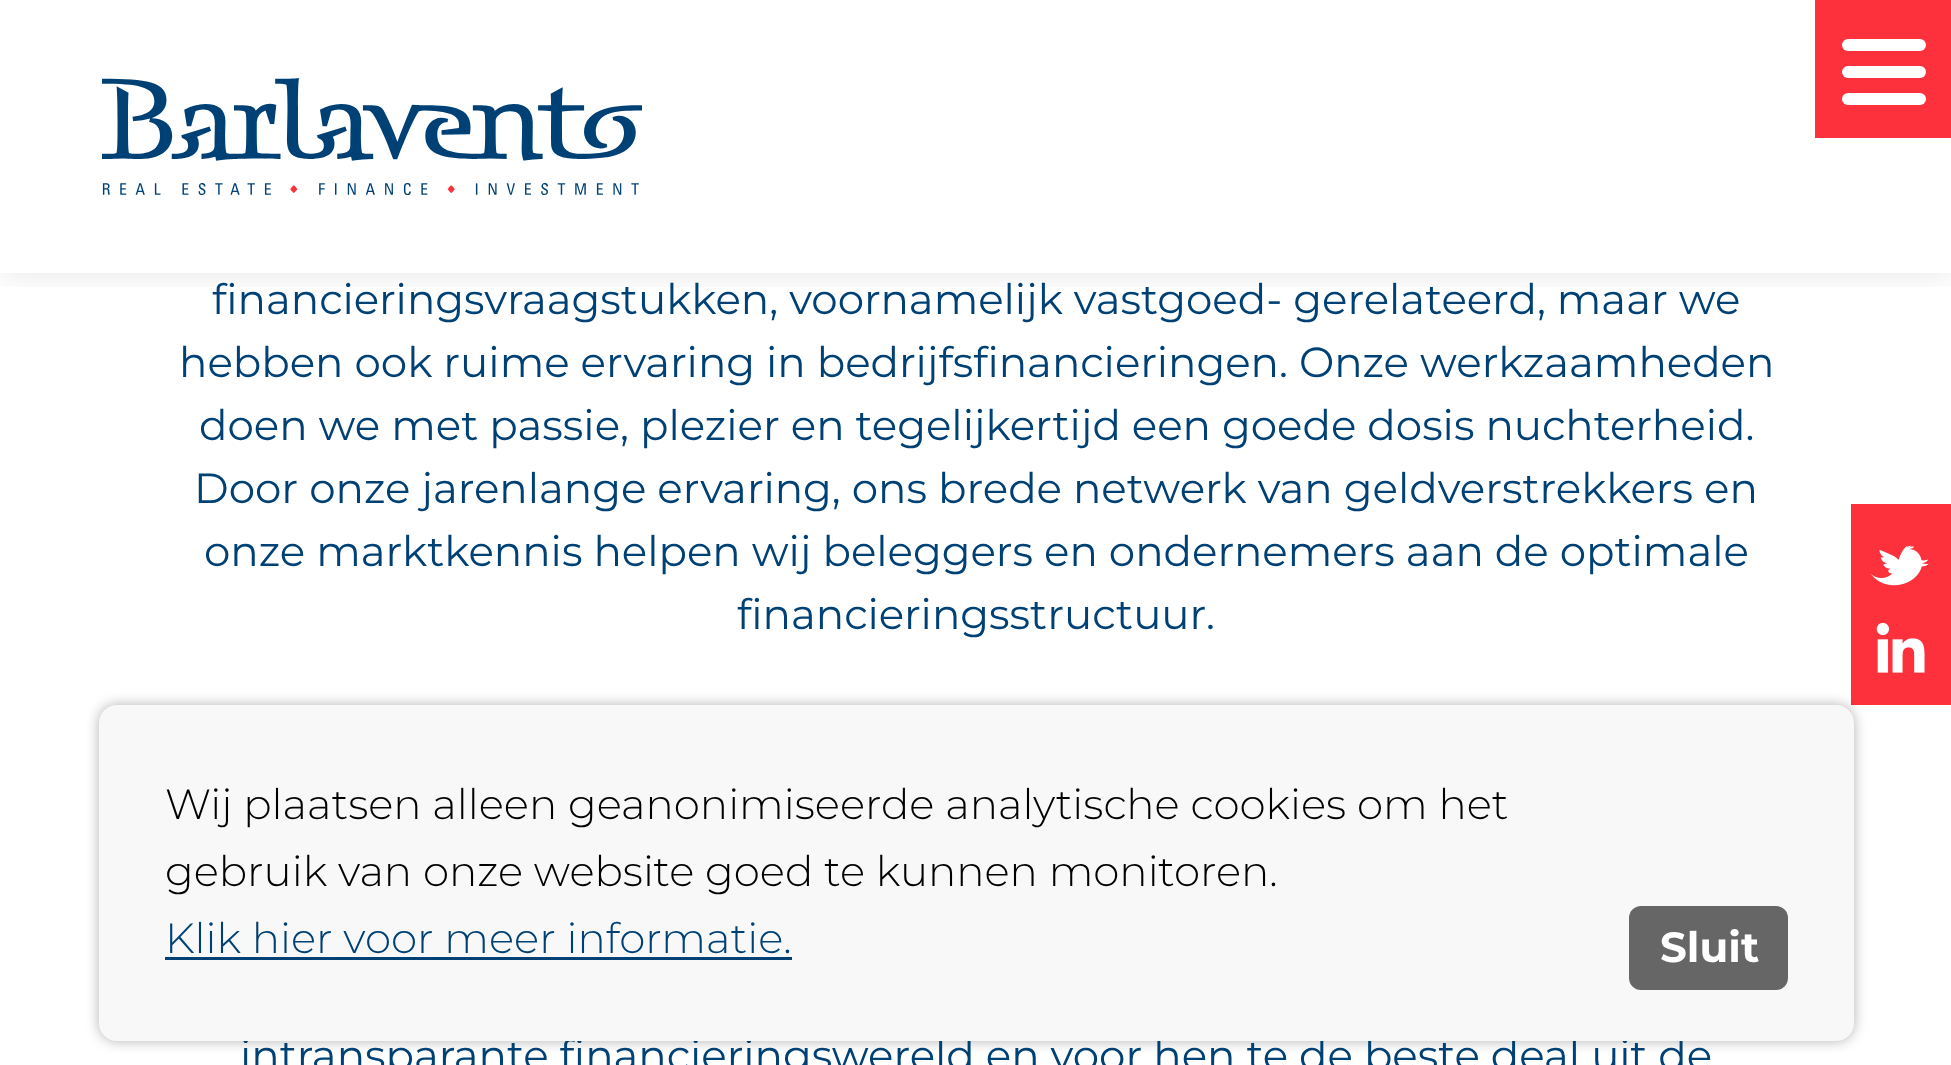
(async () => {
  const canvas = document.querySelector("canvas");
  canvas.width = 1951;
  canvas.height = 1065;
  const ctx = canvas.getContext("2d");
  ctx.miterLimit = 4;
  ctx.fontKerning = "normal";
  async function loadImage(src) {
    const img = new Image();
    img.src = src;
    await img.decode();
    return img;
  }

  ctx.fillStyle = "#ffffff";
  ctx.fillRect(0, 0, 1951, 1065);
  ctx.save();
  ctx.beginPath();
  ctx.rect(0, 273, 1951, 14);
  ctx.clip();
  ctx.fillStyle = "rgba(0, 0, 0, 0.1)";
  ctx.filter = "blur(17px)";
  ctx.beginPath();
  ctx.rect(0, 0, 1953, 273);
  ctx.fill();
  ctx.filter = "none";
  ctx.restore();
  ctx.drawImage(await loadImage("img/1.png"), 102, 78, 540, 117);
  ctx.fillStyle = "#fc313c";
  ctx.fillRect(1815, 0, 136, 138);
  ctx.fillStyle = "#ffffff";
  ctx.beginPath();
  ctx.roundRect(1842, 39, 84, 12, 6);
  ctx.fill();
  ctx.beginPath();
  ctx.roundRect(1842, 66, 84, 12, 6);
  ctx.fill();
  ctx.beginPath();
  ctx.roundRect(1842, 93, 84, 12, 6);
  ctx.fill();
  ctx.fillStyle = "#fc313c";
  ctx.fillRect(1851, 504, 100, 201);
  ctx.drawImage(await loadImage("img/2.png"), 1871, 545, 58, 41);
  ctx.drawImage(await loadImage("img/3.png"), 1876, 622, 49, 51);
  ctx.fillStyle = "rgba(0, 0, 0, 0.3)";
  ctx.filter = "blur(6.5px)";
  ctx.beginPath();
  ctx.roundRect(99, 705, 1755, 336, 18);
  ctx.fill();
  ctx.filter = "none";
  ctx.font = "42px Montserrat";
  ctx.fillStyle = "#004175";
  for (const [text, x, y] of [
    ["financieringsvraagstukken, voornamelijk vastgoed- gerelateerd, maar we", 212, 314],
    ["hebben ook ruime ervaring in bedrijfsfinancieringen. Onze werkzaamheden", 179, 377],
    ["doen we met passie, plezier en tegelijkertijd een goede dosis nuchterheid.", 199, 440],
    ["Door onze jarenlange ervaring, ons brede netwerk van geldverstrekkers en", 194, 503],
    ["onze marktkennis helpen wij beleggers en ondernemers aan de optimale", 204, 566],
    ["financieringsstructuur.", 737, 629],
    ["intransparante financieringswereld en voor hen te de beste deal uit de", 240, 1070],
  ]) {
    ctx.fillText(text, x, y);
  }
  ctx.fillStyle = "#f8f8f8";
  ctx.beginPath();
  ctx.roundRect(99, 705, 1755, 336, 18);
  ctx.fill();
  ctx.font = "300 42px Montserrat";
  ctx.fillStyle = "#000000";
  ctx.fillText("Wij plaatsen alleen geanonimiseerde analytische cookies om het", 165, 819);
  ctx.fillText("gebruik van onze website goed te kunnen monitoren.", 165, 886);
  ctx.fillStyle = "#004175";
  ctx.fillText("Klik hier voor meer informatie.", 165, 953);
  ctx.fillRect(165, 957, 627, 3);
  ctx.fillStyle = "#666666";
  ctx.beginPath();
  ctx.roundRect(1629, 906, 159, 84, 12);
  ctx.fill();
  ctx.font = "bold 42px Montserrat";
  ctx.fillStyle = "#ffffff";
  ctx.fillText("Sluit", 1660, 962);
})();
